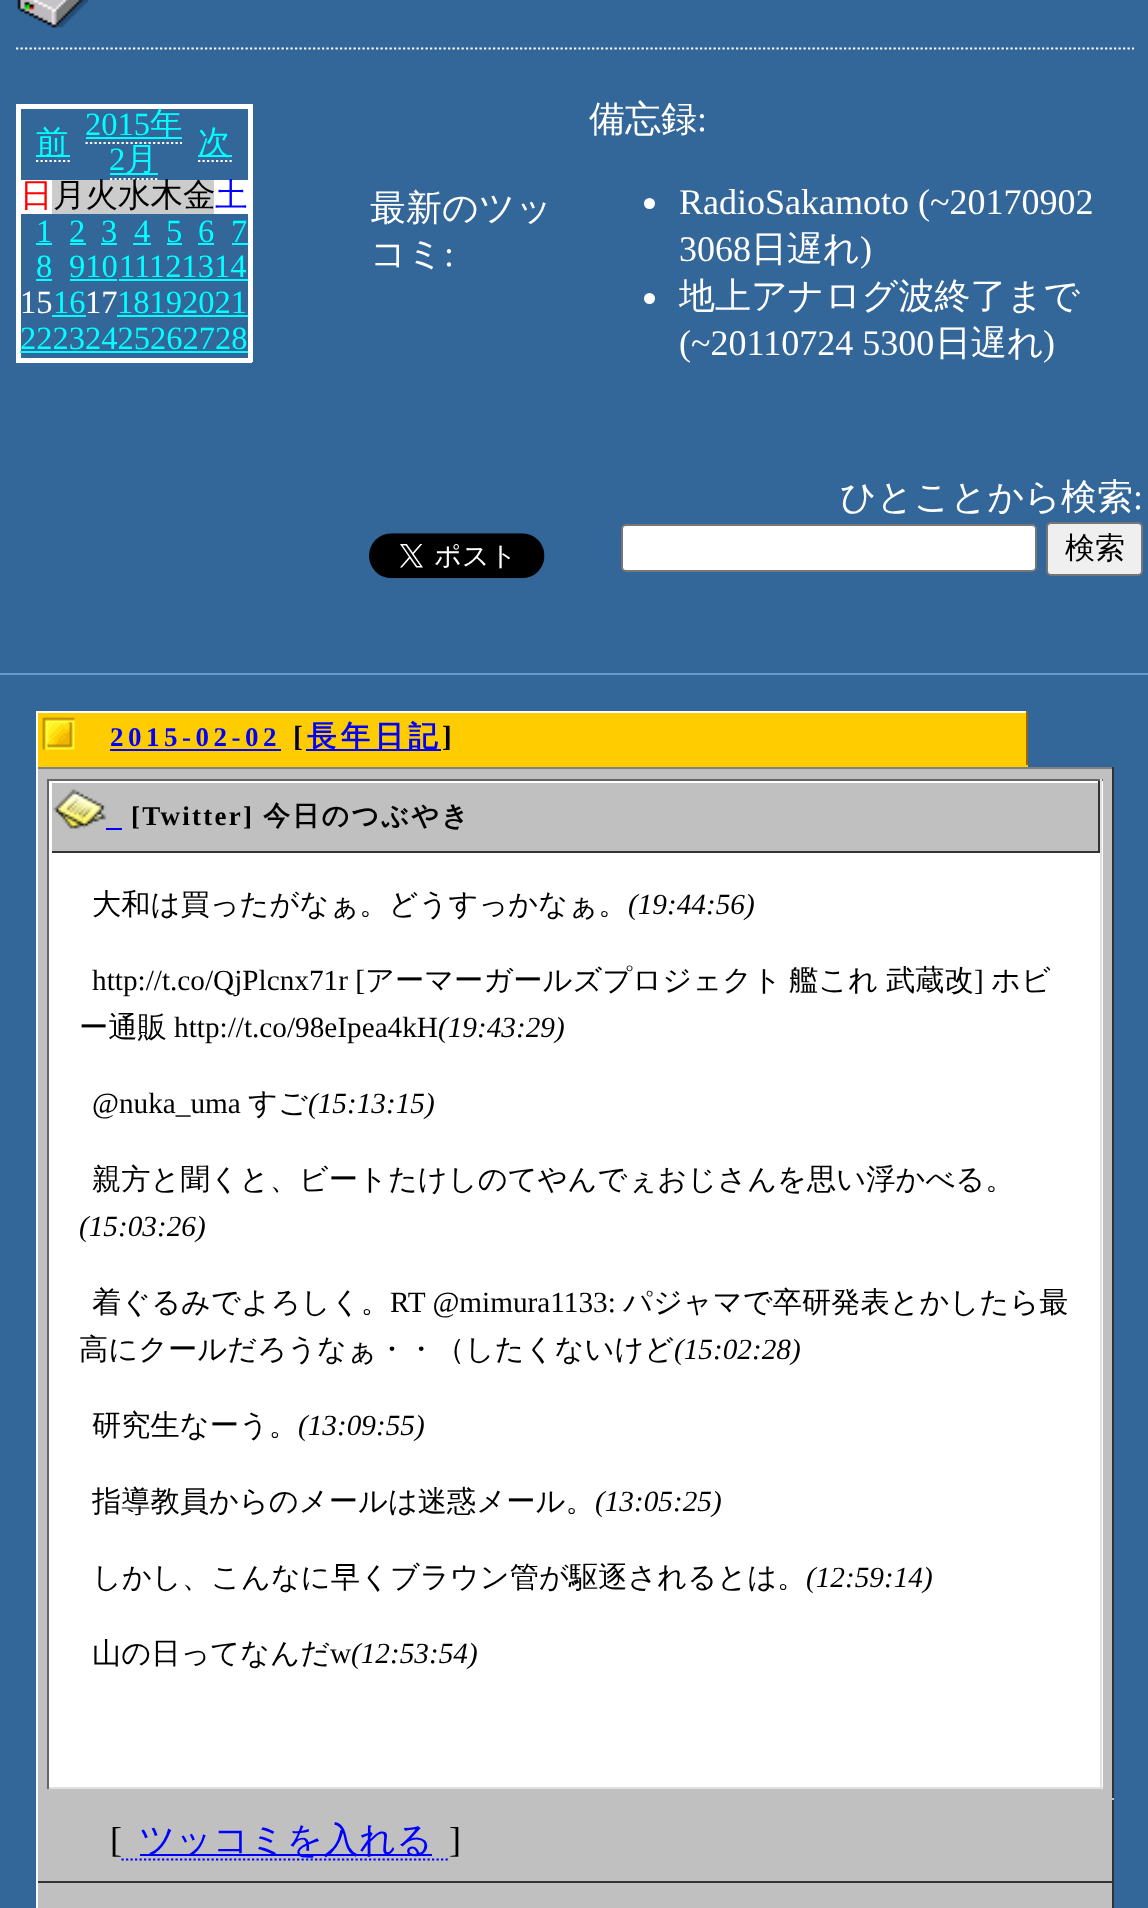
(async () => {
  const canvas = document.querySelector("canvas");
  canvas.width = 1148;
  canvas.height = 1908;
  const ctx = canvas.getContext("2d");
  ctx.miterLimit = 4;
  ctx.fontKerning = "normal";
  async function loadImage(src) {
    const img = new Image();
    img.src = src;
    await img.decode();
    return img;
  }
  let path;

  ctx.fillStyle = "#336699";
  ctx.fillRect(0, 0, 1148, 1908);
  ctx.drawImage(await loadImage("img/1.png"), 17, 0, 71, 28);
  path = new Path2D("M16 48.5H1134");
  ctx.strokeStyle = "#ffffff";
  ctx.lineWidth = 2.2;
  ctx.setLineDash([2.25, 2.25]);
  ctx.stroke(path);
  for (const [x, y, w, h, color] of [
    [16, 104, 236, 5, "#ffffff"],
    [248, 104, 5, 258, "#ffffff"],
    [16, 358, 236, 5, "#ffffff"],
    [16, 104, 5, 258, "#ffffff"],
  ]) {
    ctx.fillStyle = color;
    ctx.fillRect(x, y, w, h);
  }
  path = new Path2D("M36 161H70");
  ctx.stroke(path);
  ctx.fillStyle = "#00ffff";
  ctx.fillRect(36, 155, 34, 2);
  ctx.fillRect(86, 137, 96, 2);
  path = new Path2D("M85.5 143H182");
  ctx.stroke(path);
  ctx.fillStyle = "#cccccc";
  ctx.fillRect(52, 180, 162, 34);
  path = new Path2D("M110 179H157.5");
  ctx.stroke(path);
  ctx.fillStyle = "#00ffff";
  ctx.fillRect(110, 173, 48, 2);
  path = new Path2D("M198 161H232");
  ctx.stroke(path);
  for (const [x, y, w, h, color] of [
    [198, 155, 34, 2, "#00ffff"],
    [21, 180, 31, 34, "#ffffff"],
    [214, 180, 34, 34, "#ffffff"],
    [36, 243, 16, 2, "#00ffff"],
    [70, 243, 16, 2, "#00ffff"],
    [101, 243, 16, 2, "#00ffff"],
    [133, 243, 18, 2, "#00ffff"],
    [167, 243, 15, 2, "#00ffff"],
    [198, 243, 16, 2, "#00ffff"],
    [232, 243, 16, 2, "#00ffff"],
    [36, 279, 16, 2, "#00ffff"],
    [70, 279, 47, 2, "#00ffff"],
    [119, 279, 129, 2, "#00ffff"],
    [52, 315, 34, 2, "#00ffff"],
    [117, 315, 131, 2, "#00ffff"],
    [20, 351, 228, 2, "#00ffff"],
  ]) {
    ctx.fillStyle = color;
    ctx.fillRect(x, y, w, h);
  }
  ctx.fillStyle = "#ffffff";
  ctx.beginPath();
  ctx.arc(649.5, 203.5, 5.5, 0, Math.PI * 2);
  ctx.fill();
  ctx.beginPath();
  ctx.arc(649.5, 298.5, 5.5, 0, Math.PI * 2);
  ctx.fill();
  ctx.drawImage(await loadImage("img/2.png"), 369, 533, 176, 46);
  ctx.beginPath();
  ctx.roundRect(622, 525, 414, 46, 4);
  ctx.fill();
  ctx.strokeStyle = "#767676";
  ctx.lineWidth = 2;
  ctx.setLineDash([]);
  ctx.stroke();
  ctx.fillStyle = "#efefef";
  ctx.beginPath();
  ctx.roundRect(1047, 523, 95, 52, 4);
  ctx.fill();
  ctx.stroke();
  ctx.fillStyle = "#6699cc";
  ctx.fillRect(0, 673, 1148, 2);
  ctx.fillStyle = "#ffcc00";
  ctx.fillRect(38, 713, 988, 52);
  ctx.drawImage(await loadImage("img/3.png"), 42, 717, 33, 33);
  for (const [x, y, w, h, color] of [
    [36, 711, 992, 2, "#ffffff"],
    [1026, 711, 2, 56, "#996600"],
    [36, 765, 992, 2, "#ffcc00"],
    [36, 711, 2, 56, "#ffffff"],
    [110, 749, 171, 2, "#0000ff"],
    [306, 749, 135, 2, "#0000ff"],
    [38, 769, 1074, 1029, "#c0c0c0"],
    [36, 767, 1078, 2, "#808080"],
    [1112, 767, 2, 1141, "#333333"],
    [36, 1798, 1078, 2, "#c0c0c0"],
    [36, 767, 2, 1033, "#ffffff"],
    [49, 781, 1054, 1006, "#ffffff"],
    [47, 779, 1056, 2, "#666666"],
    [1100, 779, 2, 1010, "#e0e0e0"],
    [47, 1787, 1056, 2, "#e0e0e0"],
    [47, 779, 2, 1010, "#666666"],
    [52, 783, 1046, 68, "#c0c0c0"],
  ]) {
    ctx.fillStyle = color;
    ctx.fillRect(x, y, w, h);
  }
  ctx.drawImage(await loadImage("img/4.png"), 53, 789, 53, 40);
  for (const [x, y, w, h, color] of [
    [1098, 781, 2, 72, "#333333"],
    [50, 851, 1050, 2, "#333333"],
    [50, 851, 2, 2, "#ffffff"],
    [106, 828, 16, 2, "#0000ff"],
    [38, 1800, 1074, 81, "#c0c0c0"],
    [36, 1881, 1078, 2, "#333333"],
    [36, 1800, 2, 108, "#ffffff"],
  ]) {
    ctx.fillStyle = color;
    ctx.fillRect(x, y, w, h);
  }
  path = new Path2D("M121.5 1859.5H450");
  ctx.strokeStyle = "#0000ff";
  ctx.lineWidth = 2.2;
  ctx.setLineDash([2.25, 2.25]);
  ctx.stroke(path);
  ctx.fillStyle = "#0000ff";
  ctx.fillRect(140, 1854, 292, 2);
  ctx.fillStyle = "#c0c0c0";
  ctx.fillRect(38, 1883, 1074, 25);
  ctx.font = "500 32.5px WenQuanYi Zen Hei";
  ctx.fillStyle = "#00ffff";
  ctx.fillText("前", 36, 153);
  ctx.font = "32.5px Liberation Serif";
  ctx.fillText("2015", 85, 135);
  ctx.font = "500 32.5px WenQuanYi Zen Hei";
  ctx.fillText("年", 150, 135);
  ctx.font = "32.5px Liberation Serif";
  ctx.fillText("2", 109, 170);
  ctx.font = "500 32.5px WenQuanYi Zen Hei";
  ctx.fillText("月", 125, 170);
  ctx.fillText("次", 198, 153);
  ctx.fillStyle = "#ff0000";
  ctx.fillText("日", 20, 206);
  ctx.fillStyle = "#000000";
  ctx.fillText("月火水木金", 53, 206);
  ctx.fillStyle = "#0000ff";
  ctx.fillText("土", 215, 206);
  ctx.font = "32.5px Liberation Serif";
  ctx.fillStyle = "#00ffff";
  for (const [text, x, y] of [
    ["1", 36, 242],
    ["2", 69, 242],
    ["3", 101, 242],
    ["4", 134, 242],
    ["5", 166, 242],
    ["6", 198, 242],
    ["7", 231, 242],
    ["8", 36, 277],
    ["910", 69, 277],
    ["11121314", 119, 277],
  ]) {
    ctx.fillText(text, x, y);
  }
  ctx.fillStyle = "#ffffff";
  ctx.fillText("15", 20, 313);
  ctx.fillStyle = "#00ffff";
  ctx.fillText("16", 53, 313);
  ctx.fillStyle = "#ffffff";
  ctx.fillText("17", 85, 313);
  ctx.fillStyle = "#00ffff";
  ctx.fillText("18192021", 117, 313);
  ctx.fillText("22232425262728", 20, 349);
  ctx.font = "500 36px WenQuanYi Zen Hei";
  ctx.fillStyle = "#ffffff";
  ctx.fillText("最新のツッ", 370, 220);
  ctx.fillText("コミ", 370, 266);
  ctx.font = "36px Liberation Serif";
  ctx.fillText(":", 444, 266);
  ctx.font = "500 36px WenQuanYi Zen Hei";
  ctx.fillText("備忘録", 589, 131);
  ctx.font = "36px Liberation Serif";
  for (const [text, x, y] of [
    [":", 697, 131],
    ["RadioSakamoto (~20170902", 679, 214],
    ["3068", 679, 261],
  ]) {
    ctx.fillText(text, x, y);
  }
  ctx.font = "500 36px WenQuanYi Zen Hei";
  ctx.fillText("日遅れ", 751, 261);
  ctx.font = "36px Liberation Serif";
  ctx.fillText(")", 860, 261);
  ctx.font = "500 36px WenQuanYi Zen Hei";
  ctx.fillText("地上アナログ波終了まで", 679, 308);
  ctx.font = "36px Liberation Serif";
  ctx.fillText("(~20110724 5300", 679, 355);
  ctx.font = "500 36px WenQuanYi Zen Hei";
  ctx.fillText("日遅れ", 935, 355);
  ctx.font = "36px Liberation Serif";
  ctx.fillText(")", 1043, 355);
  ctx.font = "500 36px WenQuanYi Zen Hei";
  ctx.fillText("ひとことから検索", 840, 509);
  ctx.font = "36px Liberation Serif";
  ctx.fillText(":", 1133, 509);
  ctx.font = "500 30px WenQuanYi Zen Hei";
  ctx.fillStyle = "#000000";
  ctx.fillText("検索", 1065, 558);
  ctx.letterSpacing = "4.5px";
  ctx.font = "bold 27px Liberation Serif";
  ctx.fillStyle = "#0000ff";
  ctx.fillText("2015-02-02", 110, 746);
  ctx.font = "bold 29.25px Liberation Serif";
  ctx.fillStyle = "#000000";
  ctx.fillText("[", 293, 746);
  ctx.font = "bold 29.25px WenQuanYi Zen Hei";
  ctx.fillStyle = "#0000ff";
  ctx.fillText("長年日記", 307, 746);
  ctx.font = "bold 29.25px Liberation Serif";
  ctx.fillStyle = "#000000";
  ctx.fillText("]", 442, 746);
  ctx.letterSpacing = "2.25px";
  ctx.font = "bold 27px Liberation Serif";
  ctx.fillText("[Twitter]", 131, 825);
  ctx.font = "bold 27px WenQuanYi Zen Hei";
  ctx.fillText("今日のつぶやき", 263, 825);
  ctx.letterSpacing = "0px";
  ctx.font = "500 29.25px WenQuanYi Zen Hei";
  ctx.fillText("大和は買ったがなぁ。どうすっかなぁ。", 92, 914);
  ctx.font = "italic 29.25px Liberation Serif";
  ctx.fillText("(19:44:56)", 628, 914);
  ctx.font = "29.25px Liberation Serif";
  ctx.fillText("http://t.co/QjPlcnx71r [", 92, 990);
  ctx.font = "500 29.25px WenQuanYi Zen Hei";
  for (const [text, x, y] of [
    ["アーマーガールズプロジェクト", 365, 990],
    ["艦これ", 789, 990],
    ["武蔵改", 886, 990],
  ]) {
    ctx.fillText(text, x, y);
  }
  ctx.font = "29.25px Liberation Serif";
  ctx.fillText("]", 974, 990);
  ctx.font = "500 29.25px WenQuanYi Zen Hei";
  ctx.fillText("ホビ", 991, 990);
  ctx.fillText("ー通販", 79, 1037);
  ctx.font = "29.25px Liberation Serif";
  ctx.fillText("http://t.co/98eIpea4kH", 174, 1037);
  ctx.font = "italic 29.25px Liberation Serif";
  ctx.fillText("(19:43:29)", 438, 1037);
  ctx.font = "29.25px Liberation Serif";
  ctx.fillText("@nuka_uma", 92, 1113);
  ctx.font = "500 29.25px WenQuanYi Zen Hei";
  ctx.fillText("すご", 248, 1113);
  ctx.font = "italic 29.25px Liberation Serif";
  ctx.fillText("(15:13:15)", 308, 1113);
  ctx.font = "500 29.25px WenQuanYi Zen Hei";
  ctx.fillText("親方と聞くと、ビートたけしのてやんでぇおじさんを思い浮かべる。", 92, 1189);
  ctx.font = "italic 29.25px Liberation Serif";
  ctx.fillText("(15:03:26)", 79, 1236);
  ctx.font = "500 29.25px WenQuanYi Zen Hei";
  ctx.fillText("着ぐるみでよろしく。", 92, 1312);
  ctx.font = "29.25px Liberation Serif";
  ctx.fillText("RT @mimura1133:", 390, 1312);
  ctx.font = "500 29.25px WenQuanYi Zen Hei";
  ctx.fillText("パジャマで卒研発表とかしたら最", 623, 1312);
  ctx.fillText("高にクールだろうなぁ・・（したくないけど", 79, 1359);
  ctx.font = "italic 29.25px Liberation Serif";
  ctx.fillText("(15:02:28)", 674, 1359);
  ctx.font = "500 29.25px WenQuanYi Zen Hei";
  ctx.fillText("研究生なーう。", 92, 1435);
  ctx.font = "italic 29.25px Liberation Serif";
  ctx.fillText("(13:09:55)", 298, 1435);
  ctx.font = "500 29.25px WenQuanYi Zen Hei";
  ctx.fillText("指導教員からのメールは迷惑メール。", 92, 1511);
  ctx.font = "italic 29.25px Liberation Serif";
  ctx.fillText("(13:05:25)", 595, 1511);
  ctx.font = "500 29.25px WenQuanYi Zen Hei";
  ctx.fillText("しかし、こんなに早くブラウン管が駆逐されるとは。", 92, 1587);
  ctx.font = "italic 29.25px Liberation Serif";
  ctx.fillText("(12:59:14)", 806, 1587);
  ctx.font = "500 29.25px WenQuanYi Zen Hei";
  ctx.fillText("山の日ってなんだ", 92, 1663);
  ctx.font = "29.25px Liberation Serif";
  ctx.fillText("w", 330, 1663);
  ctx.font = "italic 29.25px Liberation Serif";
  ctx.fillText("(12:53:54)", 351, 1663);
  ctx.font = "36px Liberation Serif";
  ctx.fillText("[", 110, 1852);
  ctx.font = "500 36px WenQuanYi Zen Hei";
  ctx.fillStyle = "#0000ff";
  ctx.fillText("ツッコミを入れる", 139, 1852);
  ctx.font = "36px Liberation Serif";
  ctx.fillStyle = "#000000";
  ctx.fillText("]", 449, 1852);
})();
